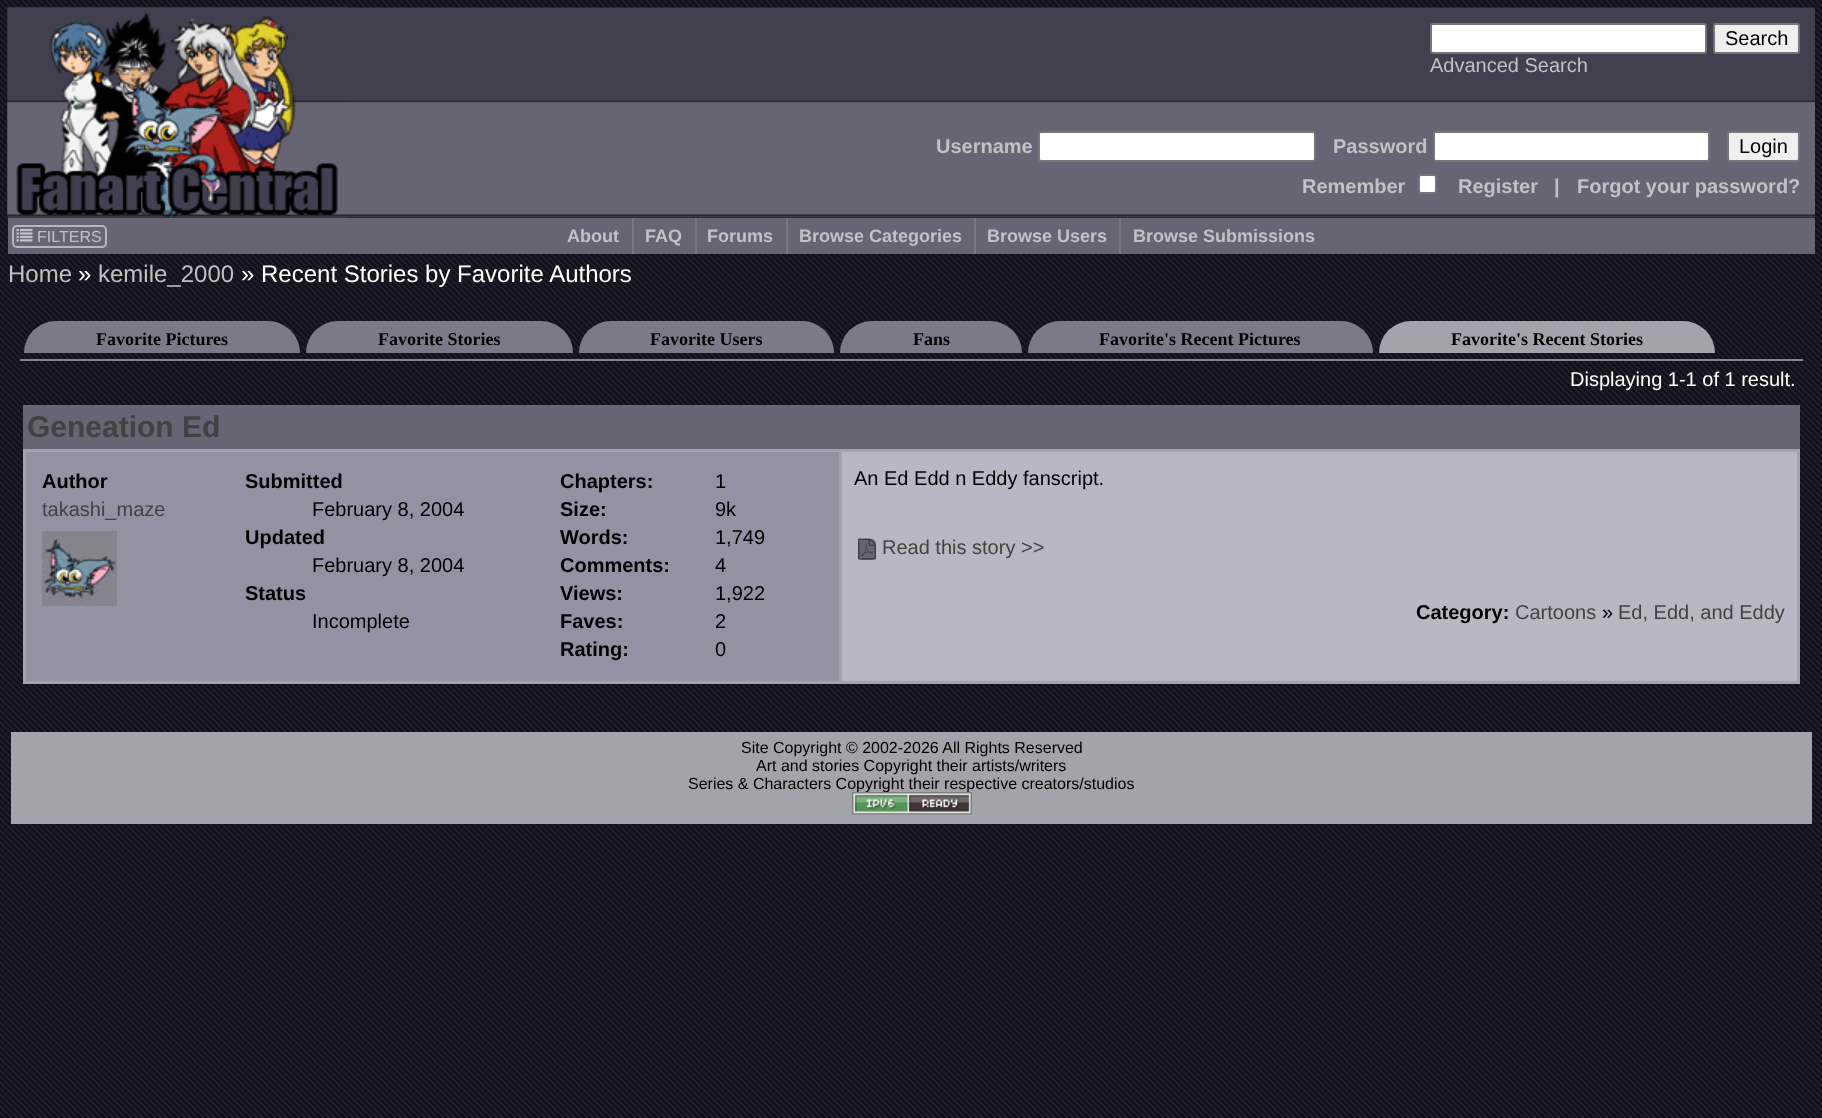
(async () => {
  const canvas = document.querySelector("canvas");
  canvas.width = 1822;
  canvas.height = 1118;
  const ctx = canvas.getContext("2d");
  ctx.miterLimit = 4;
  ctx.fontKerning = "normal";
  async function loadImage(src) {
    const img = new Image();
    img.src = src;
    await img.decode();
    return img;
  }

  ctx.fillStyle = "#ffffff";
  ctx.fillRect(0, 0, 1822, 1118);
  ctx.drawImage(await loadImage("img/1.png"), 0, 0, 1822, 1118);
  ctx.drawImage(await loadImage("img/2.png"), 7, 7, 1808, 211);
  ctx.drawImage(await loadImage("img/3.png"), 7, 7, 341, 211);
  ctx.beginPath();
  ctx.roundRect(1431, 24, 275, 29, 2);
  ctx.fill();
  ctx.strokeStyle = "#767676";
  ctx.lineWidth = 2;
  ctx.stroke();
  ctx.fillStyle = "#efefef";
  ctx.beginPath();
  ctx.roundRect(1714, 24, 85, 29, 2);
  ctx.fill();
  ctx.stroke();
  ctx.fillStyle = "#ffffff";
  ctx.beginPath();
  ctx.roundRect(1039, 132, 276, 29, 2);
  ctx.fill();
  ctx.stroke();
  ctx.beginPath();
  ctx.roundRect(1434, 132, 275, 29, 2);
  ctx.fill();
  ctx.stroke();
  ctx.fillStyle = "#efefef";
  ctx.beginPath();
  ctx.roundRect(1728, 132, 71, 29, 2);
  ctx.fill();
  ctx.stroke();
  ctx.fillStyle = "#ffffff";
  ctx.beginPath();
  ctx.roundRect(1419, 175, 17, 18, 2);
  ctx.fill();
  ctx.stroke();
  ctx.fillStyle = "#676573";
  ctx.fillRect(8, 218, 1807, 36);
  ctx.beginPath();
  ctx.roundRect(13, 226, 93, 21, 4);
  ctx.strokeStyle = "#b7b6bb";
  ctx.stroke();
  ctx.drawImage(await loadImage("img/4.png"), 16, 228, 17, 14);
  for (const [x, y, w, h, color] of [
    [632, 218, 2, 36, "#797782"],
    [695, 218, 2, 36, "#797782"],
    [786, 218, 2, 36, "#797782"],
    [974, 218, 2, 36, "#797782"],
    [1119, 218, 2, 36, "#797782"],
  ]) {
    ctx.fillStyle = color;
    ctx.fillRect(x, y, w, h);
  }
  ctx.fillStyle = "#7c7a89";
  ctx.beginPath();
  ctx.roundRect(24, 321, 276, 32, [32, 32, 0, 0]);
  ctx.fill();
  ctx.beginPath();
  ctx.roundRect(306, 321, 267, 32, [32, 32, 0, 0]);
  ctx.fill();
  ctx.beginPath();
  ctx.roundRect(579, 321, 255, 32, [32, 32, 0, 0]);
  ctx.fill();
  ctx.beginPath();
  ctx.roundRect(840, 321, 182, 32, [32, 32, 0, 0]);
  ctx.fill();
  ctx.beginPath();
  ctx.roundRect(1028, 321, 345, 32, [32, 32, 0, 0]);
  ctx.fill();
  ctx.fillStyle = "#a3a3ab";
  ctx.beginPath();
  ctx.roundRect(1379, 321, 336, 32, [32, 32, 0, 0]);
  ctx.fill();
  for (const [x, y, w, h, color] of [
    [20, 359, 1783, 2, "#85848d"],
    [23, 449, 1777, 235, "#a3a3ab"],
    [23, 405, 1777, 44, "#676573"],
    [26, 452, 813, 229, "#9491a2"],
  ]) {
    ctx.fillStyle = color;
    ctx.fillRect(x, y, w, h);
  }
  ctx.drawImage(await loadImage("img/5.png"), 42, 531, 75, 75);
  ctx.fillStyle = "#b9b7c2";
  ctx.fillRect(842, 452, 955, 229);
  ctx.fillStyle = "#676573";
  ctx.beginPath();
  ctx.roundRect(858, 539, 18, 21, 5);
  ctx.fill();
  ctx.drawImage(await loadImage("img/6.png"), 858, 538, 18, 22);
  ctx.fillStyle = "#a3a3ab";
  ctx.fillRect(11, 732, 1801, 92);
  ctx.font = "20px Liberation Sans";
  ctx.fillStyle = "#000000";
  ctx.fillText("Search", 1725, 45);
  ctx.fillStyle = "#c2c1c6";
  ctx.fillText("Advanced Search", 1430, 72);
  ctx.font = "bold 20px Liberation Sans";
  ctx.fillText("Username", 936, 153);
  ctx.fillText("Password", 1333, 153);
  ctx.font = "20px Liberation Sans";
  ctx.fillStyle = "#000000";
  ctx.fillText("Login", 1739, 153);
  ctx.font = "bold 20px Liberation Sans";
  ctx.fillStyle = "#c2c1c6";
  for (const [text, x, y] of [
    ["Remember", 1302, 193],
    ["Register", 1458, 193],
    ["|", 1554, 193],
    ["Forgot your password?", 1577, 193],
  ]) {
    ctx.fillText(text, x, y);
  }
  ctx.font = "16px Liberation Sans";
  ctx.fillText("FILTERS", 37, 242);
  ctx.font = "bold 18px Liberation Sans";
  for (const [text, x, y] of [
    ["About", 567, 242],
    ["FAQ", 645, 242],
    ["Forums", 707, 242],
    ["Browse Categories", 799, 242],
    ["Browse Users", 987, 242],
    ["Browse Submissions", 1133, 242],
  ]) {
    ctx.fillText(text, x, y);
  }
  ctx.font = "24px Liberation Sans";
  ctx.fillStyle = "#c0c0c0";
  ctx.fillText("Home", 8, 282);
  ctx.fillStyle = "#ffffff";
  ctx.fillText("»", 78, 282);
  ctx.fillStyle = "#c0c0c0";
  ctx.fillText("kemile_2000", 98, 282);
  ctx.fillStyle = "#ffffff";
  ctx.fillText("» Recent Stories by Favorite Authors", 241, 282);
  ctx.font = "bold 18px Liberation Serif";
  ctx.fillStyle = "#000000";
  for (const [text, x, y] of [
    ["Favorite Pictures", 96, 345],
    ["Favorite Stories", 378, 345],
    ["Favorite Users", 650, 345],
    ["Fans", 913, 345],
    ["Favorite's Recent Pictures", 1099, 345],
    ["Favorite's Recent Stories", 1451, 345],
  ]) {
    ctx.fillText(text, x, y);
  }
  ctx.font = "20px Liberation Sans";
  ctx.fillStyle = "#ffffff";
  ctx.fillText("Displaying 1-1 of 1 result.", 1570, 386);
  ctx.font = "bold 30px Liberation Sans";
  ctx.fillStyle = "#424242";
  ctx.fillText("Geneation Ed", 27, 437);
  ctx.font = "bold 20px Liberation Sans";
  ctx.fillStyle = "#000000";
  ctx.fillText("Author", 42, 488);
  ctx.font = "20px Liberation Sans";
  ctx.fillStyle = "#424242";
  ctx.fillText("takashi_maze", 42, 516);
  ctx.font = "bold 20px Liberation Sans";
  ctx.fillStyle = "#000000";
  ctx.fillText("Submitted", 245, 488);
  ctx.font = "20px Liberation Sans";
  ctx.fillText("February 8, 2004", 312, 516);
  ctx.font = "bold 20px Liberation Sans";
  ctx.fillText("Updated", 245, 544);
  ctx.font = "20px Liberation Sans";
  ctx.fillText("February 8, 2004", 312, 572);
  ctx.font = "bold 20px Liberation Sans";
  ctx.fillText("Status", 245, 600);
  ctx.font = "20px Liberation Sans";
  ctx.fillText("Incomplete", 312, 628);
  ctx.font = "bold 20px Liberation Sans";
  ctx.fillText("Chapters:", 560, 488);
  ctx.font = "20px Liberation Sans";
  ctx.fillText("1", 715, 488);
  ctx.font = "bold 20px Liberation Sans";
  ctx.fillText("Size:", 560, 516);
  ctx.font = "20px Liberation Sans";
  ctx.fillText("9k", 715, 516);
  ctx.font = "bold 20px Liberation Sans";
  ctx.fillText("Words:", 560, 544);
  ctx.font = "20px Liberation Sans";
  ctx.fillText("1,749", 715, 544);
  ctx.font = "bold 20px Liberation Sans";
  ctx.fillText("Comments:", 560, 572);
  ctx.font = "20px Liberation Sans";
  ctx.fillText("4", 715, 572);
  ctx.font = "bold 20px Liberation Sans";
  ctx.fillText("Views:", 560, 600);
  ctx.font = "20px Liberation Sans";
  ctx.fillText("1,922", 715, 600);
  ctx.font = "bold 20px Liberation Sans";
  ctx.fillText("Faves:", 560, 628);
  ctx.font = "20px Liberation Sans";
  ctx.fillText("2", 715, 628);
  ctx.font = "bold 20px Liberation Sans";
  ctx.fillText("Rating:", 560, 656);
  ctx.font = "20px Liberation Sans";
  ctx.fillText("0", 715, 656);
  ctx.fillText("An Ed Edd n Eddy fanscript.", 854, 485);
  ctx.fillStyle = "#424242";
  ctx.fillText("Read this story >>", 882, 554);
  ctx.font = "bold 20px Liberation Sans";
  ctx.fillStyle = "#000000";
  ctx.fillText("Category:", 1416, 619);
  ctx.font = "20px Liberation Sans";
  ctx.fillStyle = "#424242";
  ctx.fillText("Cartoons", 1515, 619);
  ctx.fillStyle = "#000000";
  ctx.fillText("»", 1602, 619);
  ctx.fillStyle = "#424242";
  ctx.fillText("Ed, Edd, and Eddy", 1618, 619);
  ctx.font = "16px Liberation Sans";
  ctx.fillStyle = "#000000";
  for (const [text, x, y] of [
    ["Site Copyright © 2002-2026 All Rights Reserved", 741, 753],
    ["Art and stories Copyright their artists/writers", 756, 771],
    ["Series & Characters Copyright their respective creators/studios", 688, 789],
  ]) {
    ctx.fillText(text, x, y);
  }
  ctx.drawImage(await loadImage("img/7.png"), 852, 792, 120, 23);
})();
